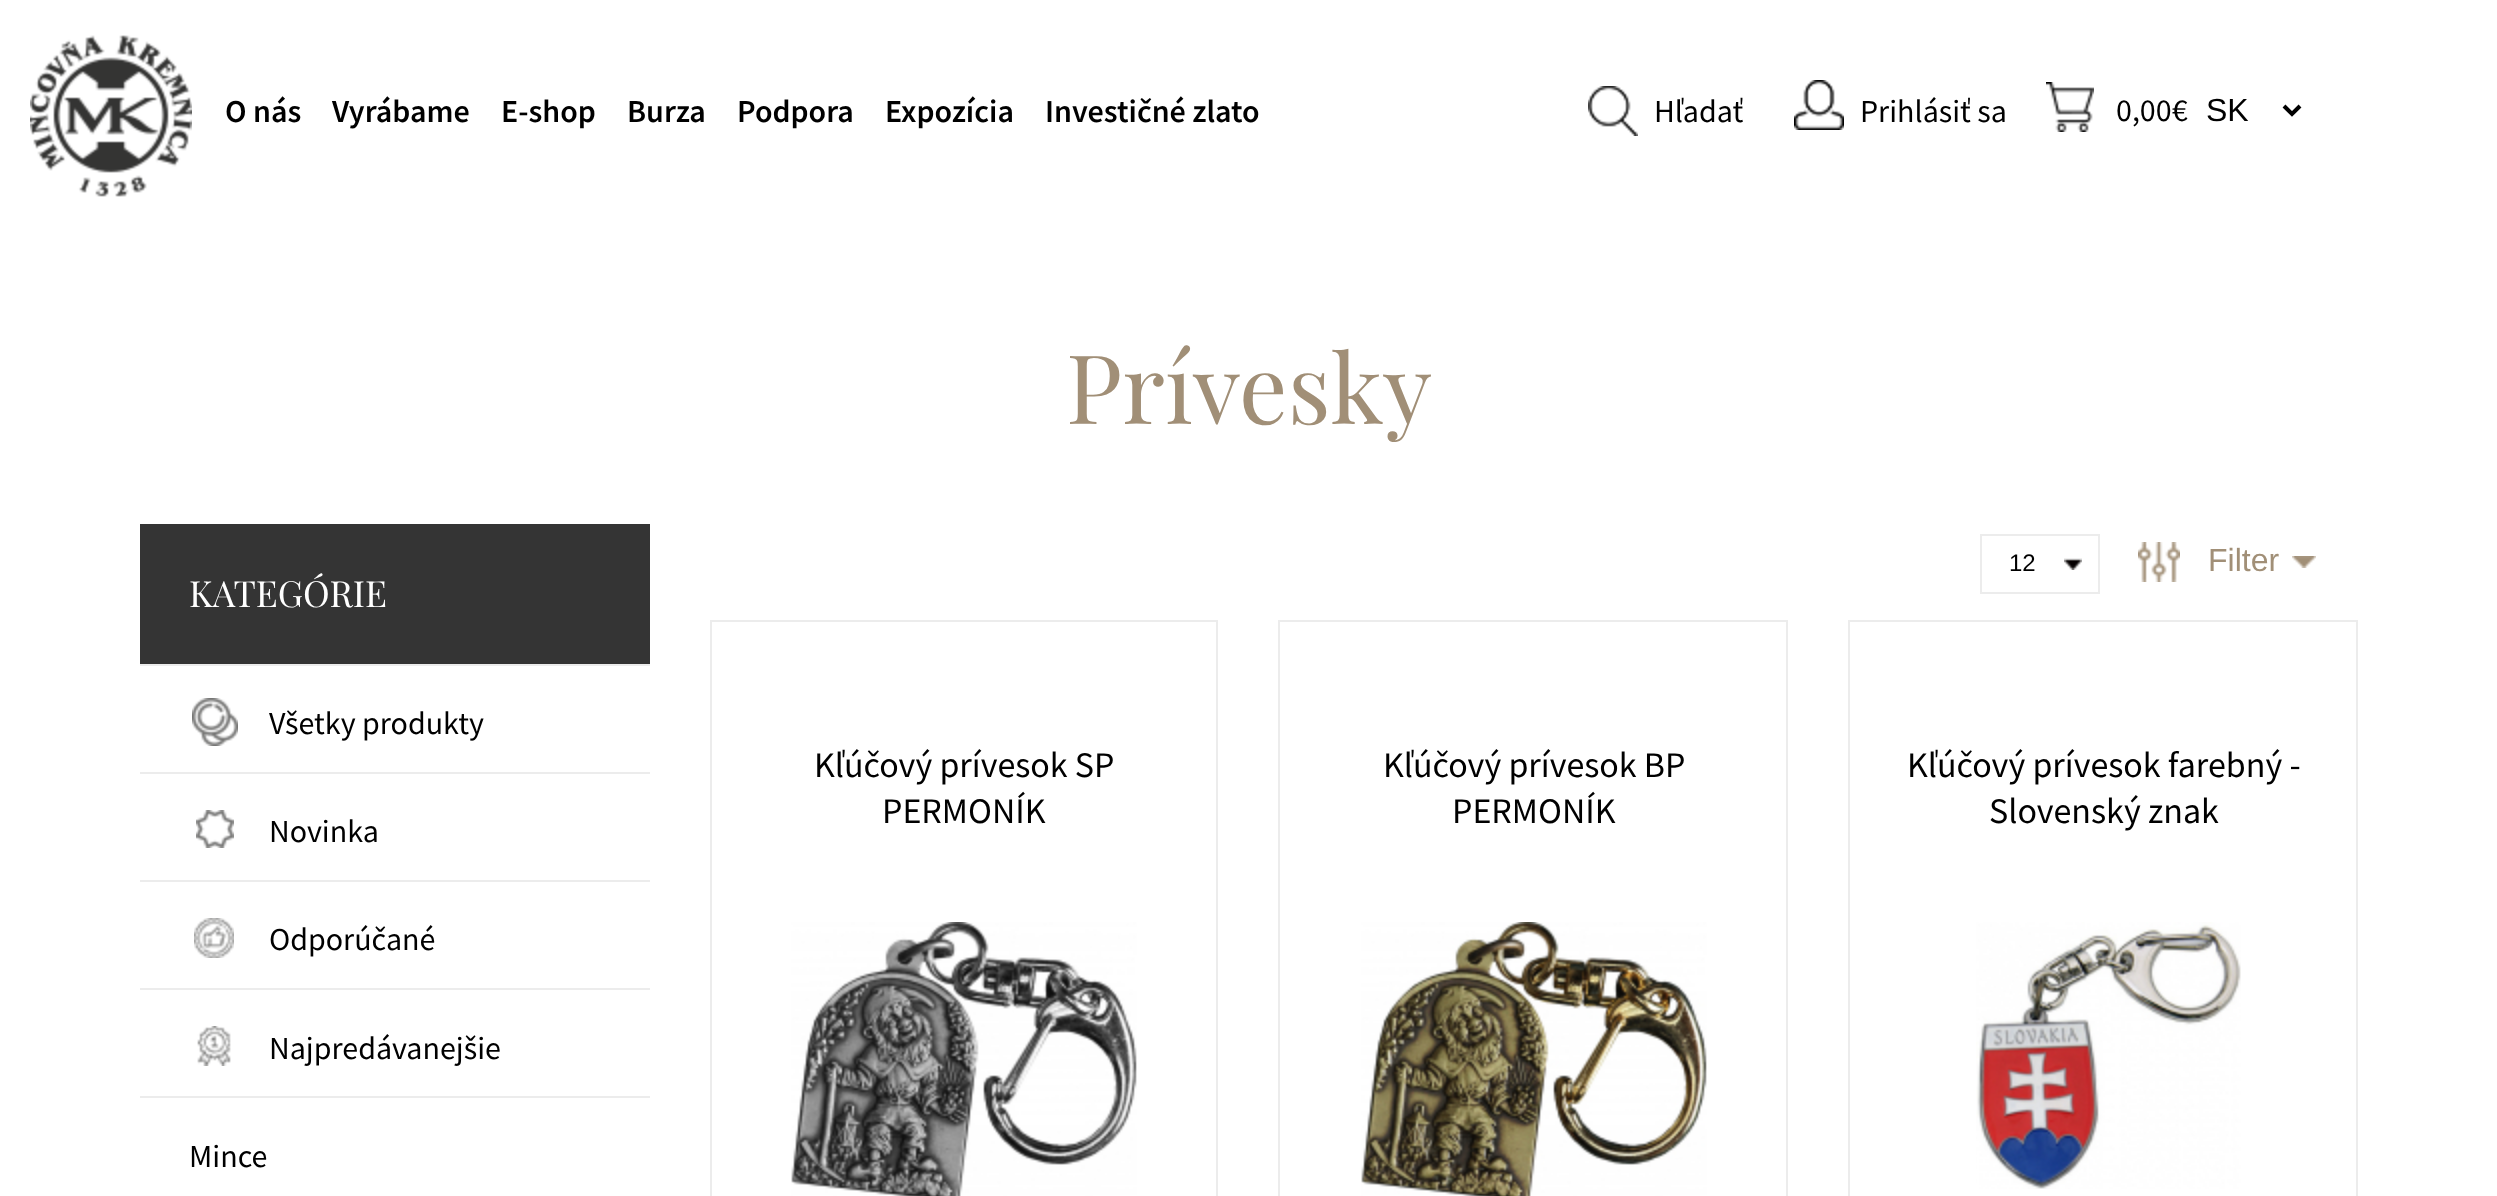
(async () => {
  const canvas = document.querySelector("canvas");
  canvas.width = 2497;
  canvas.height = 1196;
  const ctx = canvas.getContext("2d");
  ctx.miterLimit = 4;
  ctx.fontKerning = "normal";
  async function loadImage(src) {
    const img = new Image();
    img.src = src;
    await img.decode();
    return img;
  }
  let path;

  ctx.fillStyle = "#ffffff";
  ctx.fillRect(0, 0, 2497, 1196);
  ctx.drawImage(await loadImage("img/1.png"), 30, 35, 162, 162);
  ctx.drawImage(await loadImage("img/2.png"), 1588, 86, 50, 50);
  ctx.drawImage(await loadImage("img/3.png"), 1794, 80, 50, 50);
  ctx.drawImage(await loadImage("img/4.png"), 2046, 82, 48, 50);
  path = new Path2D("M2284 106L2292 114L2300 106");
  ctx.strokeStyle = "#000000";
  ctx.lineWidth = 4;
  ctx.stroke(path);
  ctx.fillStyle = "#343434";
  ctx.fillRect(140, 524, 510, 140);
  ctx.fillStyle = "#ececec";
  ctx.fillRect(140, 664, 510, 2);
  ctx.drawImage(await loadImage("img/5.png"), 192, 698, 46, 48);
  ctx.fillRect(140, 772, 510, 2);
  ctx.drawImage(await loadImage("img/6.png"), 196, 810, 38, 38);
  ctx.fillRect(140, 880, 510, 2);
  ctx.drawImage(await loadImage("img/7.png"), 194, 918, 40, 40);
  ctx.fillRect(140, 988, 510, 2);
  ctx.drawImage(await loadImage("img/8.png"), 197, 1026, 34, 40);
  ctx.fillRect(140, 1096, 510, 2);
  ctx.drawImage(await loadImage("img/9.png"), 2064, 558, 18, 12);
  ctx.strokeStyle = "#ececec";
  ctx.lineWidth = 2;
  ctx.strokeRect(1981, 535, 118, 58);
  ctx.drawImage(await loadImage("img/10.png"), 2138, 542, 42, 40);
  ctx.drawImage(await loadImage("img/11.png"), 2292, 556, 24, 12);
  ctx.strokeRect(711, 621, 506, 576);
  ctx.drawImage(await loadImage("img/12.png"), 791, 922, 346, 274);
  ctx.strokeRect(1279, 621, 508, 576);
  ctx.drawImage(await loadImage("img/13.png"), 1361, 922, 346, 274);
  ctx.strokeRect(1849, 621, 508, 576);
  ctx.drawImage(await loadImage("img/14.png"), 1976, 922, 265, 267);
  ctx.font = "600 32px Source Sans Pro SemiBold";
  ctx.fillStyle = "#000000";
  for (const [text, x, y] of [
    ["O nás", 225, 122],
    ["Vyrábame", 332, 122],
    ["E-shop", 501, 122],
    ["Burza", 627, 122],
    ["Podpora", 737, 122],
    ["Expozícia", 885, 122],
    ["Investičné zlato", 1045, 122],
  ]) {
    ctx.fillText(text, x, y);
  }
  ctx.font = "32px Source Sans Pro";
  for (const [text, x, y] of [
    ["Hľadať", 1654, 122],
    ["Prihlásiť sa", 1860, 122],
    ["0,00€", 2116, 121],
  ]) {
    ctx.fillText(text, x, y);
  }
  ctx.font = "32px Liberation Sans";
  ctx.fillText("SK", 2206, 121);
  ctx.font = "96px Playfair Display";
  ctx.fillStyle = "#a18f77";
  ctx.fillText("Prívesky", 1066, 424);
  ctx.font = "36px Playfair Display";
  ctx.fillStyle = "#ffffff";
  ctx.fillText("KATEGÓRIE", 189, 607);
  ctx.font = "32px Source Sans Pro";
  ctx.fillStyle = "#000000";
  for (const [text, x, y] of [
    ["Všetky produkty", 269, 734],
    ["Novinka", 269, 842],
    ["Odporúčané", 269, 950],
    ["Najpredávanejšie", 269, 1059],
    ["Mince", 189, 1167],
  ]) {
    ctx.fillText(text, x, y);
  }
  ctx.font = "24px Liberation Sans";
  ctx.fillText("12", 2009, 571);
  ctx.font = "32px Liberation Sans";
  ctx.fillStyle = "#a18f77";
  ctx.fillText("Filter", 2208, 571);
  ctx.font = "36px Source Sans Pro";
  ctx.fillStyle = "#000000";
  for (const [text, x, y] of [
    ["Kľúčový prívesok SP", 814, 777],
    ["PERMONÍK", 882, 823],
    ["Kľúčový prívesok BP", 1383, 777],
    ["PERMONÍK", 1452, 823],
    ["Kľúčový prívesok farebný -", 1907, 777],
    ["Slovenský znak", 1989, 823],
  ]) {
    ctx.fillText(text, x, y);
  }
})();
